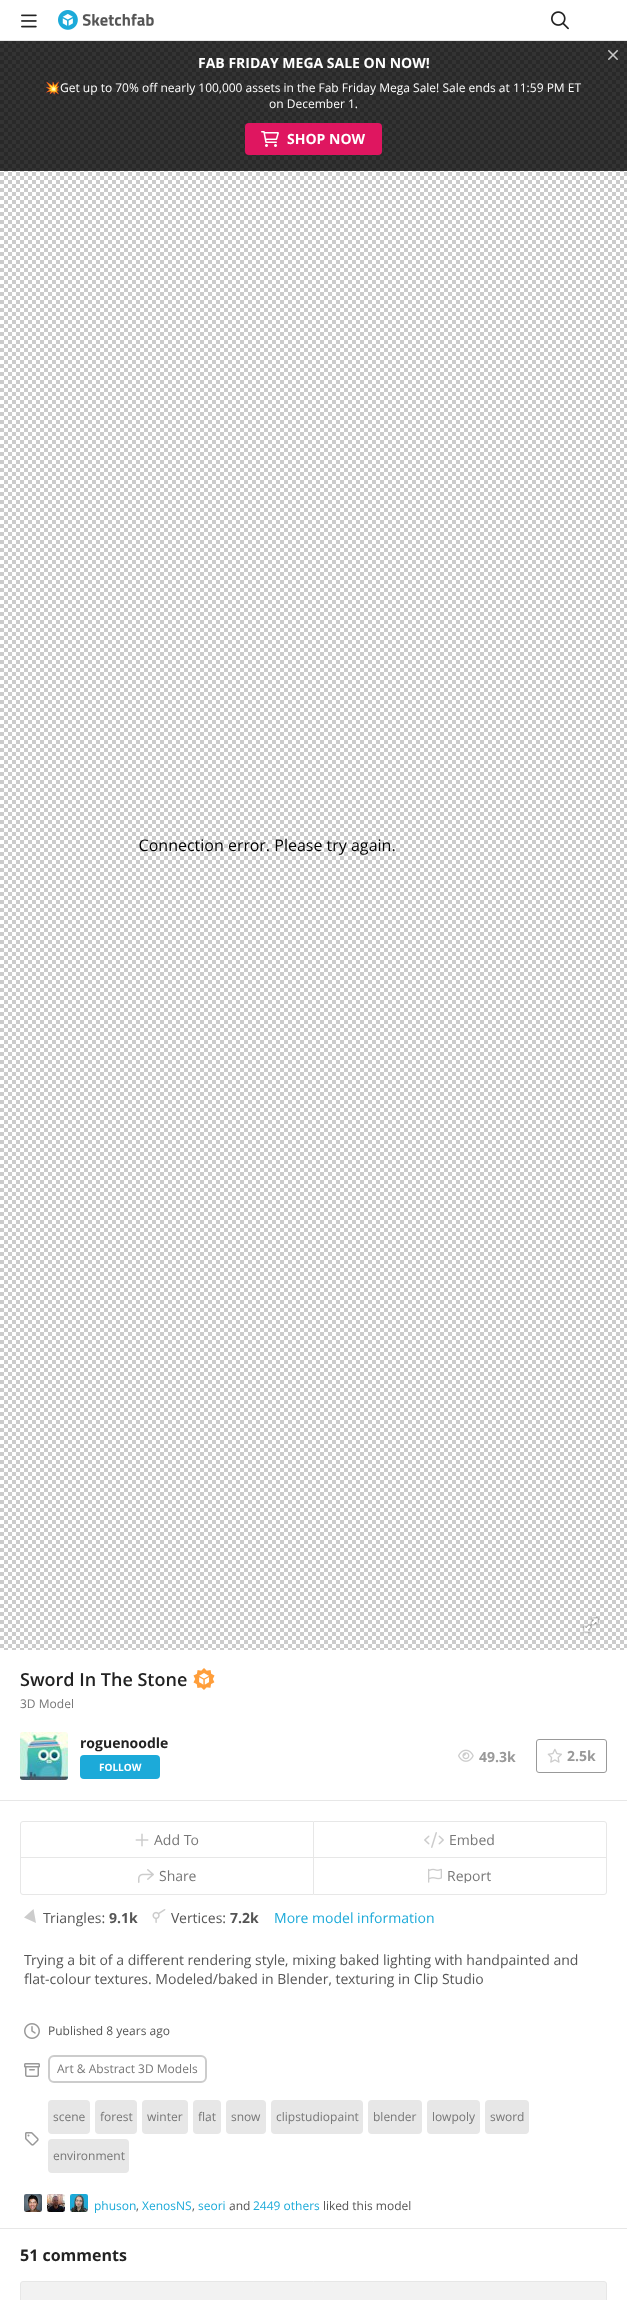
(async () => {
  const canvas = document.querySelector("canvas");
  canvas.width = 627;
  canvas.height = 2300;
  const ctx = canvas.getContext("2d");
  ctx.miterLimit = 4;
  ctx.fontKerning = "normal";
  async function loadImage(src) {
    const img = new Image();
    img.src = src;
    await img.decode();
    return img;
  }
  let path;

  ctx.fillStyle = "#ffffff";
  ctx.fillRect(0, 0, 627, 2300);
  ctx.fillStyle = "#e7e7e7";
  ctx.fillRect(0, 40, 627, 1);
  ctx.drawImage(await loadImage("img/1.png"), 21, 14, 16, 14);
  ctx.drawImage(await loadImage("img/2.png"), 58, 10, 96, 20);
  ctx.drawImage(await loadImage("img/3.png"), 551, 11, 18, 19);
  ctx.drawImage(await loadImage("img/6.png"), 0, 41, 627, 1609);
  ctx.fillStyle = "rgba(0, 0, 0, 0.8)";
  ctx.fillRect(0, 41, 627, 130);
  ctx.drawImage(await loadImage("img/4.png"), 608, 50, 10, 10);
  ctx.fillStyle = "#df1660";
  ctx.beginPath();
  ctx.roundRect(245, 123, 137, 32, 4);
  ctx.fill();
  ctx.drawImage(await loadImage("img/5.png"), 261, 131, 18, 16);
  ctx.drawImage(await loadImage("img/7.png"), 193, 1668, 22, 22);
  ctx.fillStyle = "#e7e7e7";
  ctx.fillRect(0, 1800, 627, 1);
  ctx.drawImage(await loadImage("img/8.png"), 20, 1732, 48, 48);
  ctx.fillStyle = "#1caad9";
  ctx.beginPath();
  ctx.roundRect(80, 1755, 80, 24, 4);
  ctx.fill();
  ctx.drawImage(await loadImage("img/9.png"), 458, 1749, 16, 13);
  ctx.beginPath();
  ctx.roundRect(536.5, 1739.5, 70, 33, 2.5);
  ctx.strokeStyle = "#999999";
  ctx.stroke();
  ctx.drawImage(await loadImage("img/10.png"), 547, 1748, 15, 15);
  ctx.beginPath();
  ctx.roundRect(20.5, 1821.5, 586, 73, 2.5);
  ctx.strokeStyle = "#e7e7e7";
  ctx.stroke();
  ctx.fillStyle = "#e7e7e7";
  ctx.fillRect(313, 1822, 1, 72);
  ctx.fillRect(21, 1857, 585, 1);
  ctx.drawImage(await loadImage("img/11.png"), 135, 1833, 14, 14);
  ctx.drawImage(await loadImage("img/12.png"), 424, 1832, 20, 16);
  ctx.drawImage(await loadImage("img/13.png"), 138, 1869, 16, 14);
  ctx.drawImage(await loadImage("img/14.png"), 428, 1868, 14, 15);
  ctx.fillRect(0, 2228, 627, 1);
  ctx.fillStyle = "#cccccc";
  path = new Path2D("M24 1917.5L36 1923L33.5 1909Z");
  ctx.fill(path);
  ctx.drawImage(await loadImage("img/15.png"), 152, 1909, 14, 14);
  ctx.drawImage(await loadImage("img/16.png"), 24, 2023, 16, 16);
  ctx.drawImage(await loadImage("img/17.png"), 24, 2063, 16, 14);
  ctx.beginPath();
  ctx.roundRect(49, 2056, 157, 26, 5);
  ctx.strokeStyle = "#cccccc";
  ctx.lineWidth = 2;
  ctx.stroke();
  ctx.drawImage(await loadImage("img/18.png"), 25, 2132, 14, 14);
  ctx.fillStyle = "#e7e7e7";
  ctx.beginPath();
  ctx.roundRect(48, 2100, 42, 34, 4);
  ctx.fill();
  ctx.beginPath();
  ctx.roundRect(95, 2100, 42, 34, 4);
  ctx.fill();
  ctx.beginPath();
  ctx.roundRect(142, 2100, 46, 34, 4);
  ctx.fill();
  ctx.beginPath();
  ctx.roundRect(193, 2100, 28, 34, 4);
  ctx.fill();
  ctx.beginPath();
  ctx.roundRect(226, 2100, 40, 34, 4);
  ctx.fill();
  ctx.beginPath();
  ctx.roundRect(271, 2100, 92, 34, 4);
  ctx.fill();
  ctx.beginPath();
  ctx.roundRect(368, 2100, 54, 34, 4);
  ctx.fill();
  ctx.beginPath();
  ctx.roundRect(427, 2100, 53, 34, 4);
  ctx.fill();
  ctx.beginPath();
  ctx.roundRect(485, 2100, 44, 34, 4);
  ctx.fill();
  ctx.beginPath();
  ctx.roundRect(48, 2139, 81, 34, 4);
  ctx.fill();
  ctx.drawImage(await loadImage("img/19.png"), 24, 2194, 18, 18);
  ctx.drawImage(await loadImage("img/20.png"), 47, 2194, 18, 18);
  ctx.drawImage(await loadImage("img/21.png"), 70, 2194, 18, 18);
  ctx.fillStyle = "#f2f2f2";
  ctx.beginPath();
  ctx.roundRect(20.5, 2281.5, 586, 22, 2.5);
  ctx.fill();
  ctx.strokeStyle = "#e7e7e7";
  ctx.lineWidth = 1;
  ctx.stroke();
  ctx.font = "bold 14px Open Sans";
  ctx.fillStyle = "#ffffff";
  ctx.fillText("FAB FRIDAY MEGA SALE ON NOW!", 198, 68);
  ctx.font = "12px Noto Color Emoji";
  ctx.fillText("💥", 45, 92);
  ctx.font = "12px Open Sans";
  ctx.fillText("Get up to 70% off nearly 100,000 assets in the Fab Friday Mega Sale! Sale ends at 11:59 PM ET", 60, 92);
  ctx.fillText("on December 1.", 269, 108);
  ctx.font = "bold 14px Open Sans";
  ctx.fillText("SHOP NOW", 287, 144);
  ctx.font = "600 18px Open Sans";
  ctx.fillStyle = "#222222";
  ctx.fillText("Sword In The Stone", 20, 1686);
  ctx.font = "12px Open Sans";
  ctx.fillStyle = "#777777";
  ctx.fillText("3D Model", 20, 1708);
  ctx.font = "bold 14px Open Sans";
  ctx.fillStyle = "#222222";
  ctx.fillText("roguenoodle", 80, 1748);
  ctx.font = "bold 10px Open Sans";
  ctx.fillStyle = "#ffffff";
  ctx.fillText("FOLLOW", 99, 1771);
  ctx.font = "bold 14px Open Sans";
  ctx.fillStyle = "#999999";
  ctx.fillText("49.3k", 479, 1762);
  ctx.fillText("2.5k", 567, 1761);
  ctx.font = "14px Open Sans";
  ctx.fillStyle = "#777777";
  for (const [text, x, y] of [
    ["Add To", 154, 1845],
    ["Embed", 449, 1845],
    ["Share", 159, 1881],
  ]) {
    ctx.fillText(text, x, y);
  }
  ctx.save();
  ctx.beginPath();
  ctx.rect(447, 1869, 44, 14);
  ctx.clip();
  ctx.fillText("Report", 447, 1881);
  ctx.restore();
  ctx.fillStyle = "#555555";
  ctx.fillText("Triangles:", 43, 1923);
  ctx.font = "bold 14px Open Sans";
  ctx.fillText("9.1k", 109, 1923);
  ctx.font = "14px Open Sans";
  ctx.fillText("Vertices:", 171, 1923);
  ctx.font = "bold 14px Open Sans";
  ctx.fillText("7.2k", 230, 1923);
  ctx.font = "14px Open Sans";
  ctx.fillStyle = "#1caad9";
  ctx.fillText("More model information", 274, 1923);
  ctx.fillStyle = "#555555";
  ctx.fillText("Trying a bit of a different rendering style, mixing baked lighting with handpainted and", 24, 1965);
  ctx.fillText("flat-colour textures. Modeled/baked in Blender, texturing in Clip Studio", 24, 1984);
  ctx.font = "12px Open Sans";
  ctx.fillText("Published 8 years ago", 48, 2035);
  ctx.fillStyle = "#777777";
  for (const [text, x, y] of [
    ["Art & Abstract 3D Models", 57, 2073],
    ["scene", 53, 2121],
    ["forest", 100, 2121],
    ["winter", 147, 2121],
    ["flat", 198, 2121],
    ["snow", 231, 2121],
    ["clipstudiopaint", 276, 2121],
    ["blender", 373, 2121],
    ["lowpoly", 432, 2121],
    ["sword", 490, 2121],
    ["environment", 53, 2160],
  ]) {
    ctx.fillText(text, x, y);
  }
  ctx.fillStyle = "#1caad9";
  ctx.fillText("phuson", 94, 2210);
  ctx.fillStyle = "#555555";
  ctx.fillText(",", 136, 2210);
  ctx.fillStyle = "#1caad9";
  ctx.fillText("XenosNS", 142, 2210);
  ctx.fillStyle = "#555555";
  ctx.fillText(",", 192, 2210);
  ctx.fillStyle = "#1caad9";
  ctx.fillText("seori", 198, 2210);
  ctx.fillStyle = "#555555";
  ctx.fillText("and", 229, 2210);
  ctx.fillStyle = "#1caad9";
  ctx.fillText("2449 others", 253, 2210);
  ctx.fillStyle = "#555555";
  ctx.fillText("liked this model", 323, 2210);
  ctx.font = "bold 16px Open Sans";
  ctx.fillStyle = "#222222";
  ctx.fillText("51 comments", 20, 2261);
})();
